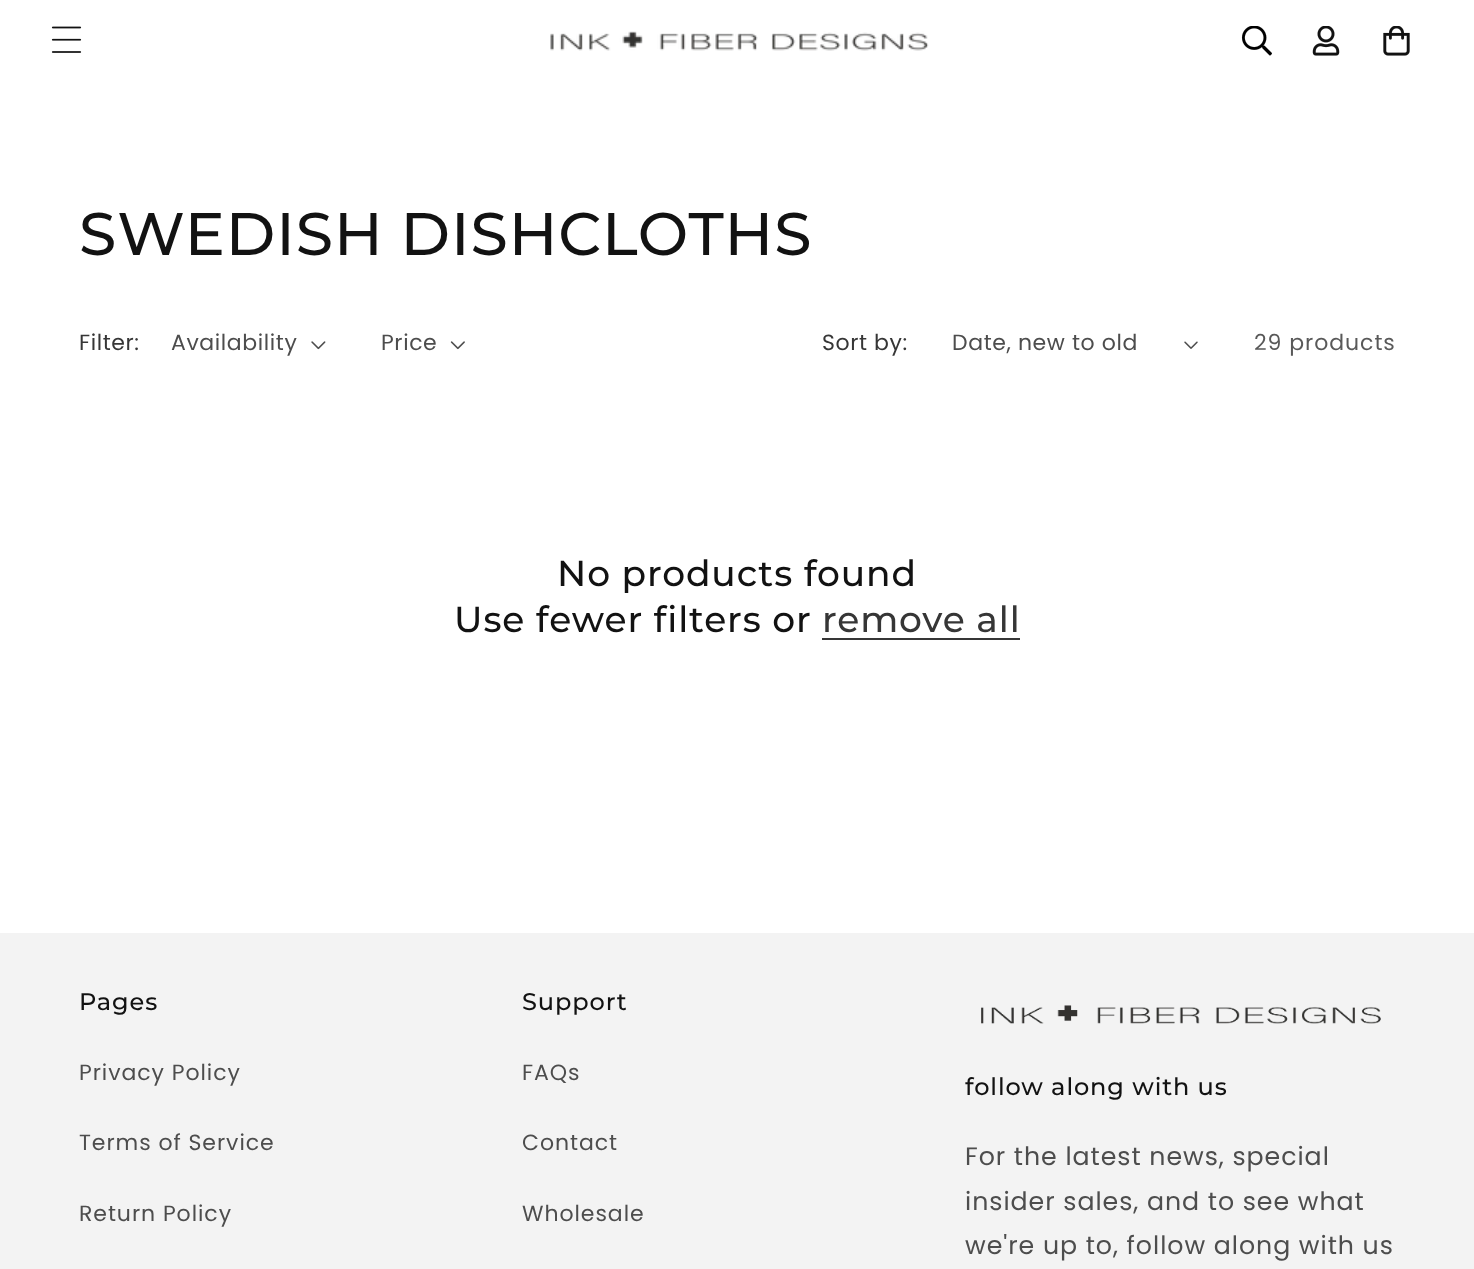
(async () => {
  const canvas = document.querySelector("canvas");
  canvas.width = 1474;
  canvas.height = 1269;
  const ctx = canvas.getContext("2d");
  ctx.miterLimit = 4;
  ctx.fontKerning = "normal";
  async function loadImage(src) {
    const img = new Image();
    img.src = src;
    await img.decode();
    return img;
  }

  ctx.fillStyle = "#ffffff";
  ctx.fillRect(0, 0, 1474, 1269);
  ctx.drawImage(await loadImage("img/1.png"), 51, 26, 31, 27);
  ctx.drawImage(await loadImage("img/2.png"), 550, 31, 379, 20);
  ctx.drawImage(await loadImage("img/3.png"), 1241, 26, 31, 30);
  ctx.drawImage(await loadImage("img/4.png"), 1312, 26, 28, 30);
  ctx.drawImage(await loadImage("img/5.png"), 1383, 26, 27, 30);
  ctx.drawImage(await loadImage("img/6.png"), 311, 341, 15, 9);
  ctx.drawImage(await loadImage("img/7.png"), 450, 341, 15, 9);
  ctx.drawImage(await loadImage("img/8.png"), 1184, 341, 14, 8);
  ctx.fillStyle = "#363636";
  ctx.fillRect(822, 638, 198, 2);
  ctx.fillStyle = "#f3f3f3";
  ctx.fillRect(0, 933, 1474, 336);
  ctx.drawImage(await loadImage("img/9.png"), 981, 1005, 400, 19);
  ctx.letterSpacing = "0.9px";
  ctx.font = "500 60px Montserrat";
  ctx.fillStyle = "#121212";
  ctx.fillText("SWEDISH DISHCLOTHS", 79, 255);
  ctx.letterSpacing = "0.6px";
  ctx.font = "22px Poppins";
  ctx.fillStyle = "#363636";
  ctx.fillText("Filter:", 79, 350);
  ctx.fillStyle = "#4d4d4d";
  ctx.fillText("Availability", 171, 350);
  ctx.fillText("Price", 381, 350);
  ctx.fillStyle = "#363636";
  ctx.fillText("Sort by:", 822, 350);
  ctx.fillStyle = "#4d4d4d";
  ctx.fillText("Date, new to old", 952, 350);
  ctx.letterSpacing = "0.95px";
  ctx.fillStyle = "#595959";
  ctx.fillText("29 products", 1254, 350);
  ctx.letterSpacing = "0.9px";
  ctx.font = "500 36px Montserrat";
  ctx.fillStyle = "#121212";
  ctx.fillText("No products found", 557, 586);
  ctx.fillText("Use fewer filters or", 454, 632);
  ctx.fillStyle = "#363636";
  ctx.fillText("remove all", 822, 632);
  ctx.font = "500 24px Montserrat";
  ctx.fillStyle = "#121212";
  ctx.fillText("Pages", 79, 1010);
  ctx.letterSpacing = "0.95px";
  ctx.font = "22px Poppins";
  ctx.fillStyle = "#4d4d4d";
  for (const [text, x, y] of [
    ["Privacy Policy", 79, 1080],
    ["Terms of Service", 79, 1150],
    ["Return Policy", 79, 1221],
  ]) {
    ctx.fillText(text, x, y);
  }
  ctx.letterSpacing = "0.9px";
  ctx.font = "500 24px Montserrat";
  ctx.fillStyle = "#121212";
  ctx.fillText("Support", 522, 1010);
  ctx.letterSpacing = "0.95px";
  ctx.font = "22px Poppins";
  ctx.fillStyle = "#4d4d4d";
  for (const [text, x, y] of [
    ["FAQs", 522, 1080],
    ["Contact", 522, 1150],
    ["Wholesale", 522, 1221],
  ]) {
    ctx.fillText(text, x, y);
  }
  ctx.letterSpacing = "0.9px";
  ctx.font = "500 24px Montserrat";
  ctx.fillStyle = "#121212";
  ctx.fillText("follow along with us", 965, 1095);
  ctx.letterSpacing = "0.95px";
  ctx.font = "25.25px Poppins";
  ctx.fillStyle = "#4d4d4d";
  for (const [text, x, y] of [
    ["For the latest news, special", 965, 1165],
    ["insider sales, and to see what", 965, 1210],
    ["we're up to, follow along with us", 965, 1254],
  ]) {
    ctx.fillText(text, x, y);
  }
})();
